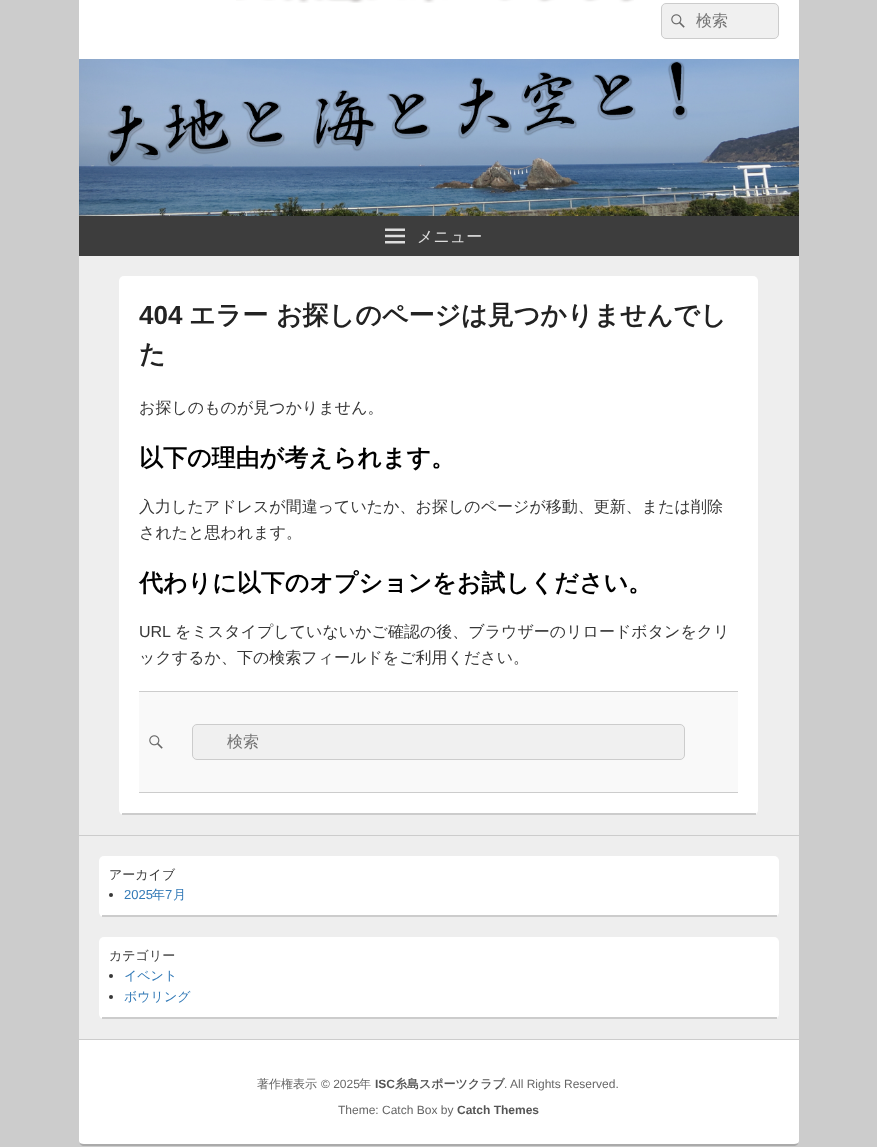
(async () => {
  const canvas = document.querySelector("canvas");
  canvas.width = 877;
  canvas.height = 1147;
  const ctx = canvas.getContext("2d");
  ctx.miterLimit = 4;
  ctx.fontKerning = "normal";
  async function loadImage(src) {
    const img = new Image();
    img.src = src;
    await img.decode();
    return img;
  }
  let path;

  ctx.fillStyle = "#cccccc";
  ctx.fillRect(0, 0, 877, 1147);
  ctx.fillStyle = "#eeeeee";
  ctx.beginPath();
  ctx.roundRect(79, -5, 720, 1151, 5);
  ctx.fill();
  ctx.fillStyle = "#ffffff";
  ctx.fillRect(79, 0, 720, 59);
  ctx.drawImage(await loadImage("img/1.png"), 236, 0, 398, 3);
  ctx.fillStyle = "#f0f0f0";
  ctx.beginPath();
  ctx.roundRect(661.5, 3.5, 117, 35, 4.5);
  ctx.fill();
  ctx.strokeStyle = "#cccccc";
  ctx.stroke();
  ctx.drawImage(await loadImage("img/2.png"), 671, 14, 14, 14);
  ctx.drawImage(await loadImage("img/3.png"), 79, 59, 720, 157);
  ctx.fillStyle = "#3d3d3d";
  ctx.fillRect(79, 216, 720, 40);
  ctx.drawImage(await loadImage("img/4.png"), 385, 228, 20, 16);
  ctx.fillStyle = "#ffffff";
  ctx.beginPath();
  ctx.roundRect(119, 276, 639, 539, 5);
  ctx.fill();
  for (const [x, y, w, h, color] of [
    [122, 813, 634, 2, "#cccccc"],
    [139, 692, 599, 100, "#f9f9f9"],
    [139, 691, 599, 1, "#cccccc"],
    [139, 792, 599, 1, "#cccccc"],
  ]) {
    ctx.fillStyle = color;
    ctx.fillRect(x, y, w, h);
  }
  ctx.drawImage(await loadImage("img/5.png"), 149, 735, 14, 14);
  ctx.fillStyle = "#f0f0f0";
  ctx.beginPath();
  ctx.roundRect(192.5, 724.5, 492, 35, 4.5);
  ctx.fill();
  ctx.stroke();
  ctx.fillStyle = "#cccccc";
  ctx.fillRect(79, 835, 720, 1);
  ctx.fillStyle = "#ffffff";
  ctx.beginPath();
  ctx.roundRect(99, 856, 680, 61, 5);
  ctx.fill();
  ctx.fillStyle = "#cccccc";
  ctx.fillRect(102, 915, 675, 2);
  ctx.fillStyle = "#373737";
  ctx.beginPath();
  ctx.arc(111, 895, 2, 0, Math.PI * 2);
  ctx.fill();
  ctx.fillStyle = "#ffffff";
  ctx.beginPath();
  ctx.roundRect(99, 937, 680, 82, 5);
  ctx.fill();
  ctx.fillStyle = "#cccccc";
  ctx.fillRect(102, 1017, 675, 2);
  ctx.fillStyle = "#373737";
  ctx.beginPath();
  ctx.arc(111, 976, 2, 0, Math.PI * 2);
  ctx.fill();
  ctx.beginPath();
  ctx.arc(111, 997, 2, 0, Math.PI * 2);
  ctx.fill();
  ctx.fillStyle = "#ffffff";
  ctx.beginPath();
  ctx.roundRect(79, 1039, 720, 107, [0, 0, 5, 5]);
  ctx.fill();
  ctx.fillStyle = "#cccccc";
  ctx.fillRect(79, 1039, 720, 1);
  ctx.fillStyle = "#aaaaaa";
  path = new Path2D("M84 1146H794C797 1146 799 1144 799 1141C799 1143 797 1144 794 1144H84C81 1144 79 1143 79 1141C79 1144 81 1146 84 1146Z");
  ctx.fill(path);
  ctx.font = "500 16px WenQuanYi Zen Hei";
  ctx.fillStyle = "#757575";
  ctx.fillText("検索", 696, 26);
  ctx.fillStyle = "#dddddd";
  ctx.fillText("メニュー", 417, 242);
  ctx.font = "bold 26px Liberation Sans";
  ctx.fillStyle = "#222222";
  ctx.fillText("404", 139, 324);
  ctx.font = "bold 26px WenQuanYi Zen Hei";
  ctx.fillText("エラー お探しのページは見つかりませんでし", 189, 324);
  ctx.fillText("た", 139, 363);
  ctx.font = "500 16px WenQuanYi Zen Hei";
  ctx.fillStyle = "#373737";
  ctx.fillText("お探しのものが見つかりません。", 139, 413);
  ctx.font = "bold 24px WenQuanYi Zen Hei";
  ctx.fillStyle = "#000000";
  ctx.fillText("以下の理由が考えられます。", 139, 466);
  ctx.font = "500 16px WenQuanYi Zen Hei";
  ctx.fillStyle = "#373737";
  ctx.fillText("入力したアドレスが間違っていたか、お探しのページが移動、更新、または削除", 139, 512);
  ctx.fillText("されたと思われます。", 139, 538);
  ctx.font = "bold 24px WenQuanYi Zen Hei";
  ctx.fillStyle = "#000000";
  ctx.fillText("代わりに以下のオプションをお試しください。", 139, 591);
  ctx.font = "16px Liberation Sans";
  ctx.fillStyle = "#373737";
  ctx.fillText("URL", 139, 637);
  ctx.font = "500 16px WenQuanYi Zen Hei";
  ctx.fillText("をミスタイプしていないかご確認の後、ブラウザーのリロードボタンをクリ", 175, 637);
  ctx.fillText("ックするか、下の検索フィールドをご利用ください。", 139, 663);
  ctx.fillStyle = "#757575";
  ctx.fillText("検索", 227, 747);
  ctx.font = "500 13px WenQuanYi Zen Hei";
  ctx.fillStyle = "#373737";
  ctx.fillText("アーカイブ", 109, 879);
  ctx.font = "13px Liberation Sans";
  ctx.fillStyle = "#337ab7";
  ctx.fillText("2025", 124, 899);
  ctx.font = "500 13px WenQuanYi Zen Hei";
  ctx.fillText("年", 152, 899);
  ctx.font = "13px Liberation Sans";
  ctx.fillText("7", 165, 899);
  ctx.font = "500 13px WenQuanYi Zen Hei";
  ctx.fillText("月", 173, 899);
  ctx.fillStyle = "#373737";
  ctx.fillText("カテゴリー", 109, 960);
  ctx.fillStyle = "#337ab7";
  ctx.fillText("イベント", 124, 980);
  ctx.fillText("ボウリング", 124, 1001);
  ctx.font = "500 12px WenQuanYi Zen Hei";
  ctx.fillStyle = "#666666";
  ctx.fillText("著作権表示", 257, 1088);
  ctx.font = "12px Liberation Sans";
  ctx.fillText("© 2025", 321, 1088);
  ctx.font = "500 12px WenQuanYi Zen Hei";
  ctx.fillText("年", 359, 1088);
  ctx.font = "bold 12px Liberation Sans";
  ctx.fillStyle = "#555555";
  ctx.fillText("ISC", 375, 1088);
  ctx.font = "bold 12px WenQuanYi Zen Hei";
  ctx.fillText("糸島スポーツクラブ", 395, 1088);
  ctx.font = "12px Liberation Sans";
  ctx.fillStyle = "#666666";
  ctx.fillText(". All Rights Reserved.", 504, 1088);
  ctx.fillText("Theme: Catch Box by", 338, 1114);
  ctx.font = "bold 12px Liberation Sans";
  ctx.fillStyle = "#555555";
  ctx.fillText("Catch Themes", 457, 1114);
})();
